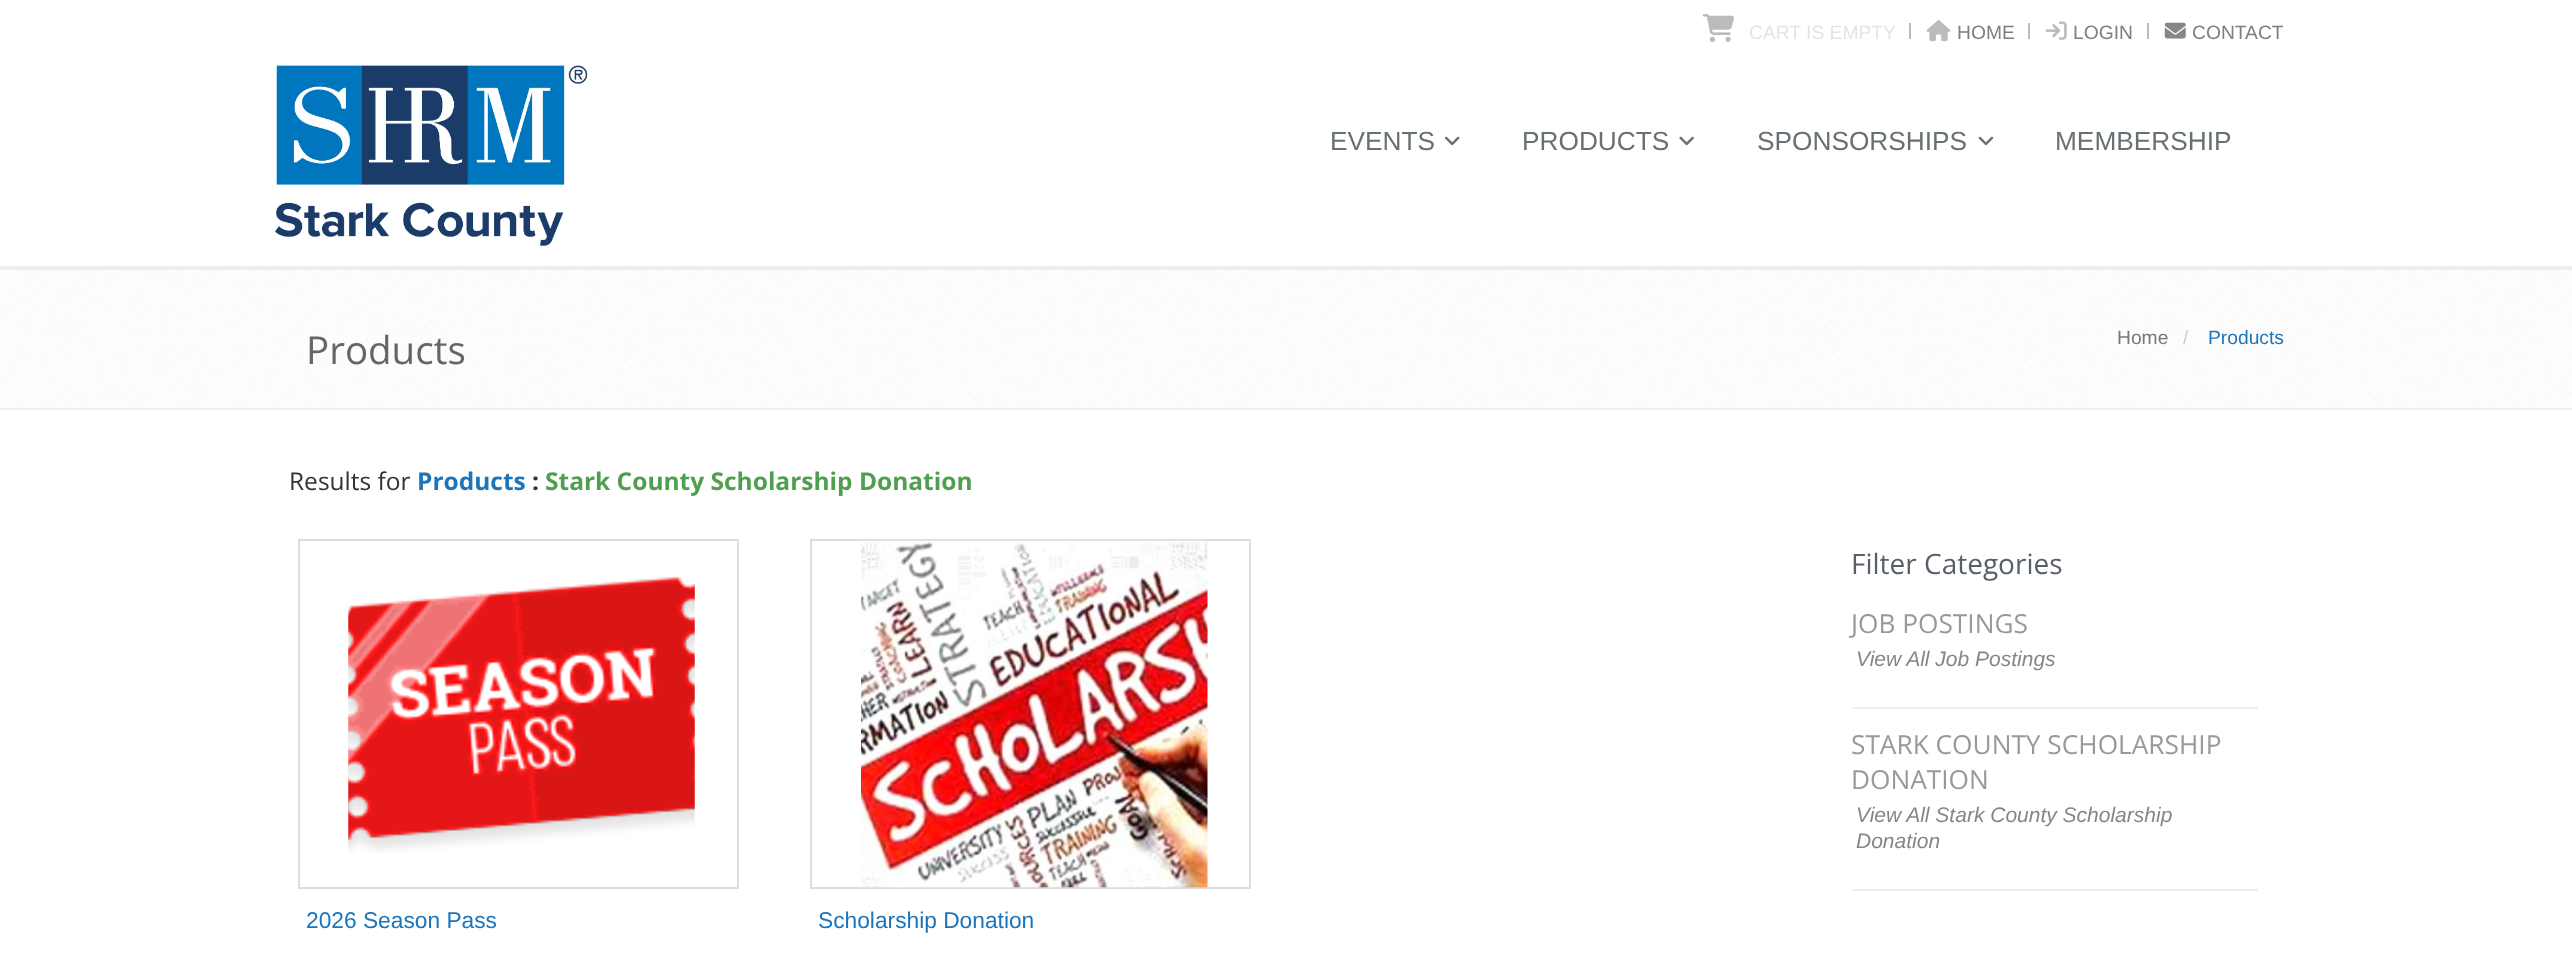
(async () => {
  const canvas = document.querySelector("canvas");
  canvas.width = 2572;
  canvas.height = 979;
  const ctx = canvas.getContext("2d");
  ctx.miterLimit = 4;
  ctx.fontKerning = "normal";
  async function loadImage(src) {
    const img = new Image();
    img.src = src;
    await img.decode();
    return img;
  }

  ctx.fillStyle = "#ffffff";
  ctx.fillRect(0, 0, 2572, 979);
  ctx.fillStyle = "#eeeeee";
  ctx.fillRect(0, 266, 2572, 4);
  ctx.drawImage(await loadImage("img/1.png"), 1702, 14, 32, 28);
  ctx.fillStyle = "#bbbbbb";
  ctx.fillRect(1909, 23, 2, 16);
  ctx.drawImage(await loadImage("img/2.png"), 1926, 20, 25, 22);
  ctx.fillRect(2028, 23, 2, 16);
  ctx.drawImage(await loadImage("img/3.png"), 2045, 21, 22, 19);
  ctx.fillRect(2147, 23, 2, 16);
  ctx.drawImage(await loadImage("img/4.png"), 2164, 22, 22, 17);
  ctx.drawImage(await loadImage("img/5.png"), 275, 65, 313, 181);
  ctx.drawImage(await loadImage("img/6.png"), 1445, 136, 15, 10);
  ctx.drawImage(await loadImage("img/7.png"), 1679, 136, 15, 10);
  ctx.drawImage(await loadImage("img/8.png"), 1978, 136, 16, 10);
  ctx.drawImage(await loadImage("img/9.png"), 0, 270, 2572, 138);
  ctx.fillStyle = "#eeeeee";
  ctx.fillRect(0, 408, 2572, 2);
  ctx.strokeStyle = "#dddddd";
  ctx.lineWidth = 2;
  ctx.strokeRect(299, 540, 439, 348);
  ctx.drawImage(await loadImage("img/10.png"), 348, 576, 347, 277);
  ctx.strokeRect(811, 540, 439, 348);
  ctx.drawImage(await loadImage("img/11.png"), 861, 540, 347, 348);
  ctx.fillRect(1852, 707, 406, 2);
  ctx.fillRect(1852, 889, 406, 2);
  ctx.font = "19.25px Liberation Sans";
  ctx.fillStyle = "#e4e4e4";
  ctx.fillText("CART IS EMPTY", 1749, 39);
  ctx.fillStyle = "#7c8082";
  for (const [text, x, y] of [
    ["HOME", 1957, 39],
    ["LOGIN", 2073, 39],
    ["CONTACT", 2192, 39],
  ]) {
    ctx.fillText(text, x, y);
  }
  ctx.font = "26.25px Liberation Sans";
  ctx.fillStyle = "#687074";
  for (const [text, x, y] of [
    ["EVENTS", 1330, 150],
    ["PRODUCTS", 1522, 150],
    ["SPONSORSHIPS", 1757, 150],
    ["MEMBERSHIP", 2055, 150],
  ]) {
    ctx.fillText(text, x, y);
  }
  ctx.font = "38.5px Open Sans";
  ctx.fillStyle = "#666666";
  ctx.fillText("Products", 306, 364);
  ctx.font = "19.25px Liberation Sans";
  ctx.fillStyle = "#777777";
  ctx.fillText("Home", 2117, 344);
  ctx.fillStyle = "#cccccc";
  ctx.fillText("/", 2183, 344);
  ctx.fillStyle = "#1b75bb";
  ctx.fillText("Products", 2208, 344);
  ctx.font = "24.5px Open Sans";
  ctx.fillStyle = "#333333";
  ctx.fillText("Results for", 289, 490);
  ctx.font = "bold 24.5px Open Sans";
  ctx.fillStyle = "#1b75bb";
  ctx.fillText("Products", 417, 490);
  ctx.fillStyle = "#333333";
  ctx.fillText(":", 532, 490);
  ctx.fillStyle = "#4f9f4f";
  ctx.fillText("Stark County Scholarship Donation", 545, 490);
  ctx.font = "22.75px Liberation Sans";
  ctx.fillStyle = "#1b75bb";
  ctx.fillText("2026 Season Pass", 306, 928);
  ctx.fillText("Scholarship Donation", 818, 928);
  ctx.font = "28px Open Sans";
  ctx.fillStyle = "#585f69";
  ctx.fillText("Filter Categories", 1851, 574);
  ctx.font = "26.25px Open Sans";
  ctx.fillStyle = "#999999";
  ctx.fillText("JOB POSTINGS", 1851, 633);
  ctx.font = "italic 21px Liberation Sans";
  ctx.fillStyle = "#868686";
  ctx.fillText("View All Job Postings", 1856, 666);
  ctx.font = "26.25px Open Sans";
  ctx.fillStyle = "#999999";
  ctx.fillText("STARK COUNTY SCHOLARSHIP", 1851, 754);
  ctx.fillText("DONATION", 1851, 789);
  ctx.font = "italic 21px Liberation Sans";
  ctx.fillStyle = "#868686";
  ctx.fillText("View All Stark County Scholarship", 1856, 822);
  ctx.fillText("Donation", 1856, 848);
})();
